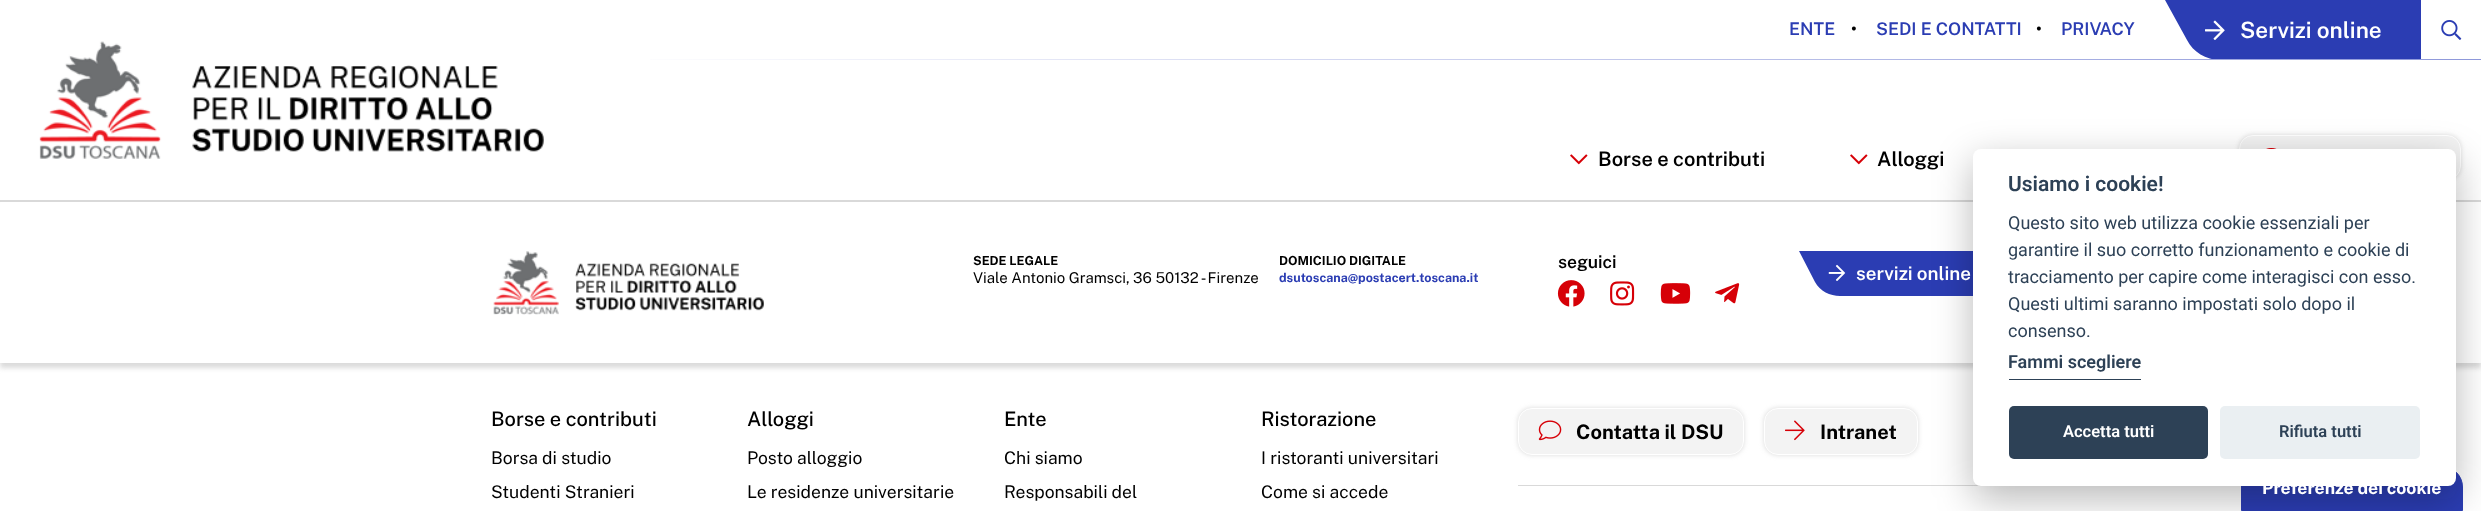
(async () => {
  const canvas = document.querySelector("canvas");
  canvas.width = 2481;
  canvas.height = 511;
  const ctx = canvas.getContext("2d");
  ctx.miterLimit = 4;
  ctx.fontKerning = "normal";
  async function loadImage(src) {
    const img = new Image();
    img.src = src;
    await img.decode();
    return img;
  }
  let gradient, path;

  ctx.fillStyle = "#ffffff";
  ctx.fillRect(0, 0, 2481, 511);
  ctx.fillStyle = "#d9d9d9";
  ctx.fillRect(0, 201, 2481, 1);
  ctx.save();
  path = new Path2D("M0 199H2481V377H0ZM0 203H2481V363H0Z");
  ctx.clip(path, "evenodd");
  ctx.fillStyle = "rgba(183, 183, 183, 0.5)";
  ctx.filter = "blur(2.5px)";
  ctx.beginPath();
  ctx.rect(0, 208, 2481, 160);
  ctx.fill();
  ctx.filter = "none";
  ctx.restore();
  ctx.fillRect(0, 200, 2481, 1);
  ctx.drawImage(await loadImage("img/1.png"), 39, 41, 505, 118);
  ctx.fillStyle = "#2b3db3";
  ctx.fillRect(2165, 0, 256, 59);
  ctx.fillStyle = "#ffffff";
  path = new Path2D("M2187 40C2193 52 2206 60 2220 60H2165V0Z");
  ctx.fill(path, "evenodd");
  ctx.drawImage(await loadImage("img/2.png"), 2205, 20, 20, 20);
  ctx.drawImage(await loadImage("img/3.png"), 2441, 20, 21, 20);
  gradient = ctx.createLinearGradient(609, 59, 2481, 59);
  gradient.addColorStop(0, "#ffffff");
  gradient.addColorStop(1, "#8e98da");
  ctx.fillStyle = gradient;
  ctx.fillRect(650, 59, 1831, 1);
  ctx.drawImage(await loadImage("img/4.png"), 1570, 154, 18, 11);
  ctx.drawImage(await loadImage("img/4.png"), 1850, 154, 18, 11);
  ctx.fillStyle = "rgba(184, 184, 184, 0.5)";
  ctx.filter = "blur(2.5px)";
  ctx.beginPath();
  ctx.roundRect(2239, 135, 222, 45, 14);
  ctx.fill();
  ctx.filter = "none";
  ctx.fillStyle = "#f3f3f3";
  ctx.beginPath();
  ctx.roundRect(2239.5, 135.5, 221, 44, 13.5);
  ctx.fill();
  ctx.strokeStyle = "#ffffff";
  ctx.stroke();
  ctx.drawImage(await loadImage("img/5.png"), 2266, 148, 11, 1);
  ctx.drawImage(await loadImage("img/6.png"), 493, 251, 271, 64);
  ctx.drawImage(await loadImage("img/7.png"), 1557, 280, 28, 27);
  ctx.drawImage(await loadImage("img/8.png"), 1610, 281, 25, 25);
  ctx.drawImage(await loadImage("img/9.png"), 1660, 283, 31, 21);
  ctx.drawImage(await loadImage("img/10.png"), 1715, 283, 25, 21);
  ctx.fillStyle = "#2b3db3";
  ctx.fillRect(1799, 251, 174, 45);
  ctx.fillStyle = "#ffffff";
  path = new Path2D("M1815 282C1820 291 1830 296 1840 296H1799V251Z");
  ctx.fill(path, "evenodd");
  ctx.drawImage(await loadImage("img/11.png"), 1828, 264, 18, 17);
  ctx.fillStyle = "rgba(184, 184, 184, 0.5)";
  ctx.filter = "blur(2.5px)";
  ctx.beginPath();
  ctx.roundRect(1518, 408, 226, 47, 14);
  ctx.fill();
  ctx.filter = "none";
  ctx.fillStyle = "#f3f3f3";
  ctx.beginPath();
  ctx.roundRect(1518.5, 408.5, 225, 46, 13.5);
  ctx.fill();
  ctx.stroke();
  ctx.drawImage(await loadImage("img/12.png"), 1538, 420, 24, 21);
  ctx.fillStyle = "rgba(184, 184, 184, 0.5)";
  ctx.filter = "blur(2.5px)";
  ctx.beginPath();
  ctx.roundRect(1764, 408, 154, 47, 14);
  ctx.fill();
  ctx.filter = "none";
  ctx.fillStyle = "#f3f3f3";
  ctx.beginPath();
  ctx.roundRect(1764.5, 408.5, 153, 46, 13.5);
  ctx.fill();
  ctx.stroke();
  ctx.drawImage(await loadImage("img/13.png"), 1785, 420, 20, 21);
  ctx.fillStyle = "#d9d9d9";
  ctx.fillRect(1518, 485, 463, 1);
  ctx.fillStyle = "#2b3db3";
  ctx.beginPath();
  ctx.roundRect(2241.5, 466.5, 221, 44, [20.5, 20.5, 0, 0]);
  ctx.fill();
  ctx.strokeStyle = "#2b3db3";
  ctx.stroke();
  ctx.fillStyle = "rgba(2, 2, 3, 0.28)";
  ctx.filter = "blur(19px)";
  ctx.beginPath();
  ctx.roundRect(1973, 161, 483, 338, 8);
  ctx.fill();
  ctx.filter = "none";
  ctx.fillStyle = "#ffffff";
  ctx.beginPath();
  ctx.roundRect(1973, 149, 483, 337, 8);
  ctx.fill();
  ctx.fillStyle = "#2d4156";
  ctx.fillRect(2009, 379, 132, 1);
  ctx.beginPath();
  ctx.roundRect(2009, 406, 199, 53, 5);
  ctx.fill();
  ctx.fillStyle = "#eaeff2";
  ctx.beginPath();
  ctx.roundRect(2220, 406, 200, 53, 5);
  ctx.fill();
  ctx.font = "100 17.5px 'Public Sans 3'";
  ctx.fillStyle = "#2b3db3";
  ctx.fillText("ENTE", 1789, 35);
  ctx.fillStyle = "#000000";
  ctx.fillText("•", 1851, 35);
  ctx.fillStyle = "#2b3db3";
  ctx.fillText("SEDI E CONTATTI", 1876, 35);
  ctx.fillStyle = "#000000";
  ctx.fillText("•", 2036, 35);
  ctx.fillStyle = "#2b3db3";
  ctx.fillText("PRIVACY", 2061, 35);
  ctx.font = "100 22.5px 'Public Sans 3'";
  ctx.fillStyle = "#ffffff";
  ctx.fillText("Servizi online", 2240, 38);
  ctx.font = "100 20px 'Public Sans 3'";
  ctx.fillStyle = "#000000";
  ctx.fillText("Borse e contributi", 1598, 166);
  ctx.fillText("Alloggi", 1877, 166);
  ctx.font = "100 12.5px Public Sans";
  ctx.fillText("SEDE LEGALE", 973, 265);
  ctx.font = "100 15px 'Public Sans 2'";
  ctx.fillText("Viale Antonio Gramsci, 36 50132 - Firenze", 973, 283);
  ctx.font = "100 12.5px Public Sans";
  ctx.fillText("DOMICILIO DIGITALE", 1279, 265);
  ctx.fillStyle = "#2b3db3";
  ctx.fillText("dsutoscana@postacert.toscana.it", 1279, 282);
  ctx.font = "100 17.5px 'Public Sans 3'";
  ctx.fillStyle = "#000000";
  ctx.fillText("seguici", 1558, 268);
  ctx.font = "100 18.75px 'Public Sans 3'";
  ctx.fillStyle = "#ffffff";
  ctx.fillText("servizi online", 1856, 280);
  ctx.font = "100 20px 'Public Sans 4'";
  ctx.fillStyle = "#000000";
  ctx.fillText("Borse e contributi", 491, 426);
  ctx.font = "100 17.5px 'Public Sans 2'";
  ctx.fillText("Borsa di studio", 491, 464);
  ctx.fillText("Studenti Stranieri", 491, 498);
  ctx.font = "100 20px 'Public Sans 4'";
  ctx.fillText("Alloggi", 747, 426);
  ctx.font = "100 17.5px 'Public Sans 2'";
  ctx.fillText("Posto alloggio", 747, 464);
  ctx.fillText("Le residenze universitarie", 747, 498);
  ctx.font = "100 20px 'Public Sans 4'";
  ctx.fillText("Ente", 1004, 426);
  ctx.font = "100 17.5px 'Public Sans 2'";
  ctx.fillText("Chi siamo", 1004, 464);
  ctx.fillText("Responsabili del", 1004, 498);
  ctx.font = "100 20px 'Public Sans 4'";
  ctx.fillText("Ristorazione", 1261, 426);
  ctx.font = "100 17.5px 'Public Sans 2'";
  ctx.fillText("I ristoranti universitari", 1261, 464);
  ctx.fillText("Come si accede", 1261, 498);
  ctx.font = "100 20px Public Sans";
  ctx.fillText("Contatta il DSU", 1576, 439);
  ctx.fillText("Intranet", 1820, 439);
  ctx.font = "100 17.5px Public Sans";
  ctx.fillStyle = "#ffffff";
  ctx.fillText("Preferenze dei cookie", 2262, 494);
  ctx.font = "600 21px Roboto";
  ctx.fillStyle = "#2d4156";
  ctx.fillText("Usiamo i cookie!", 2008, 191);
  ctx.font = "18px Roboto";
  for (const [text, x, y] of [
    ["Questo sito web utilizza cookie essenziali per", 2008, 229],
    ["garantire il suo corretto funzionamento e cookie di", 2008, 256],
    ["tracciamento per capire come interagisci con esso.", 2008, 283],
    ["Questi ultimi saranno impostati solo dopo il", 2008, 310],
    ["consenso.", 2008, 337],
  ]) {
    ctx.fillText(text, x, y);
  }
  ctx.font = "600 18px Roboto";
  ctx.fillText("Fammi scegliere", 2008, 368);
  ctx.font = "600 16.5px Roboto";
  ctx.fillStyle = "#ffffff";
  ctx.fillText("Accetta tutti", 2063, 437);
  ctx.fillStyle = "#2d4156";
  ctx.fillText("Rifiuta tutti", 2279, 437);
})();
